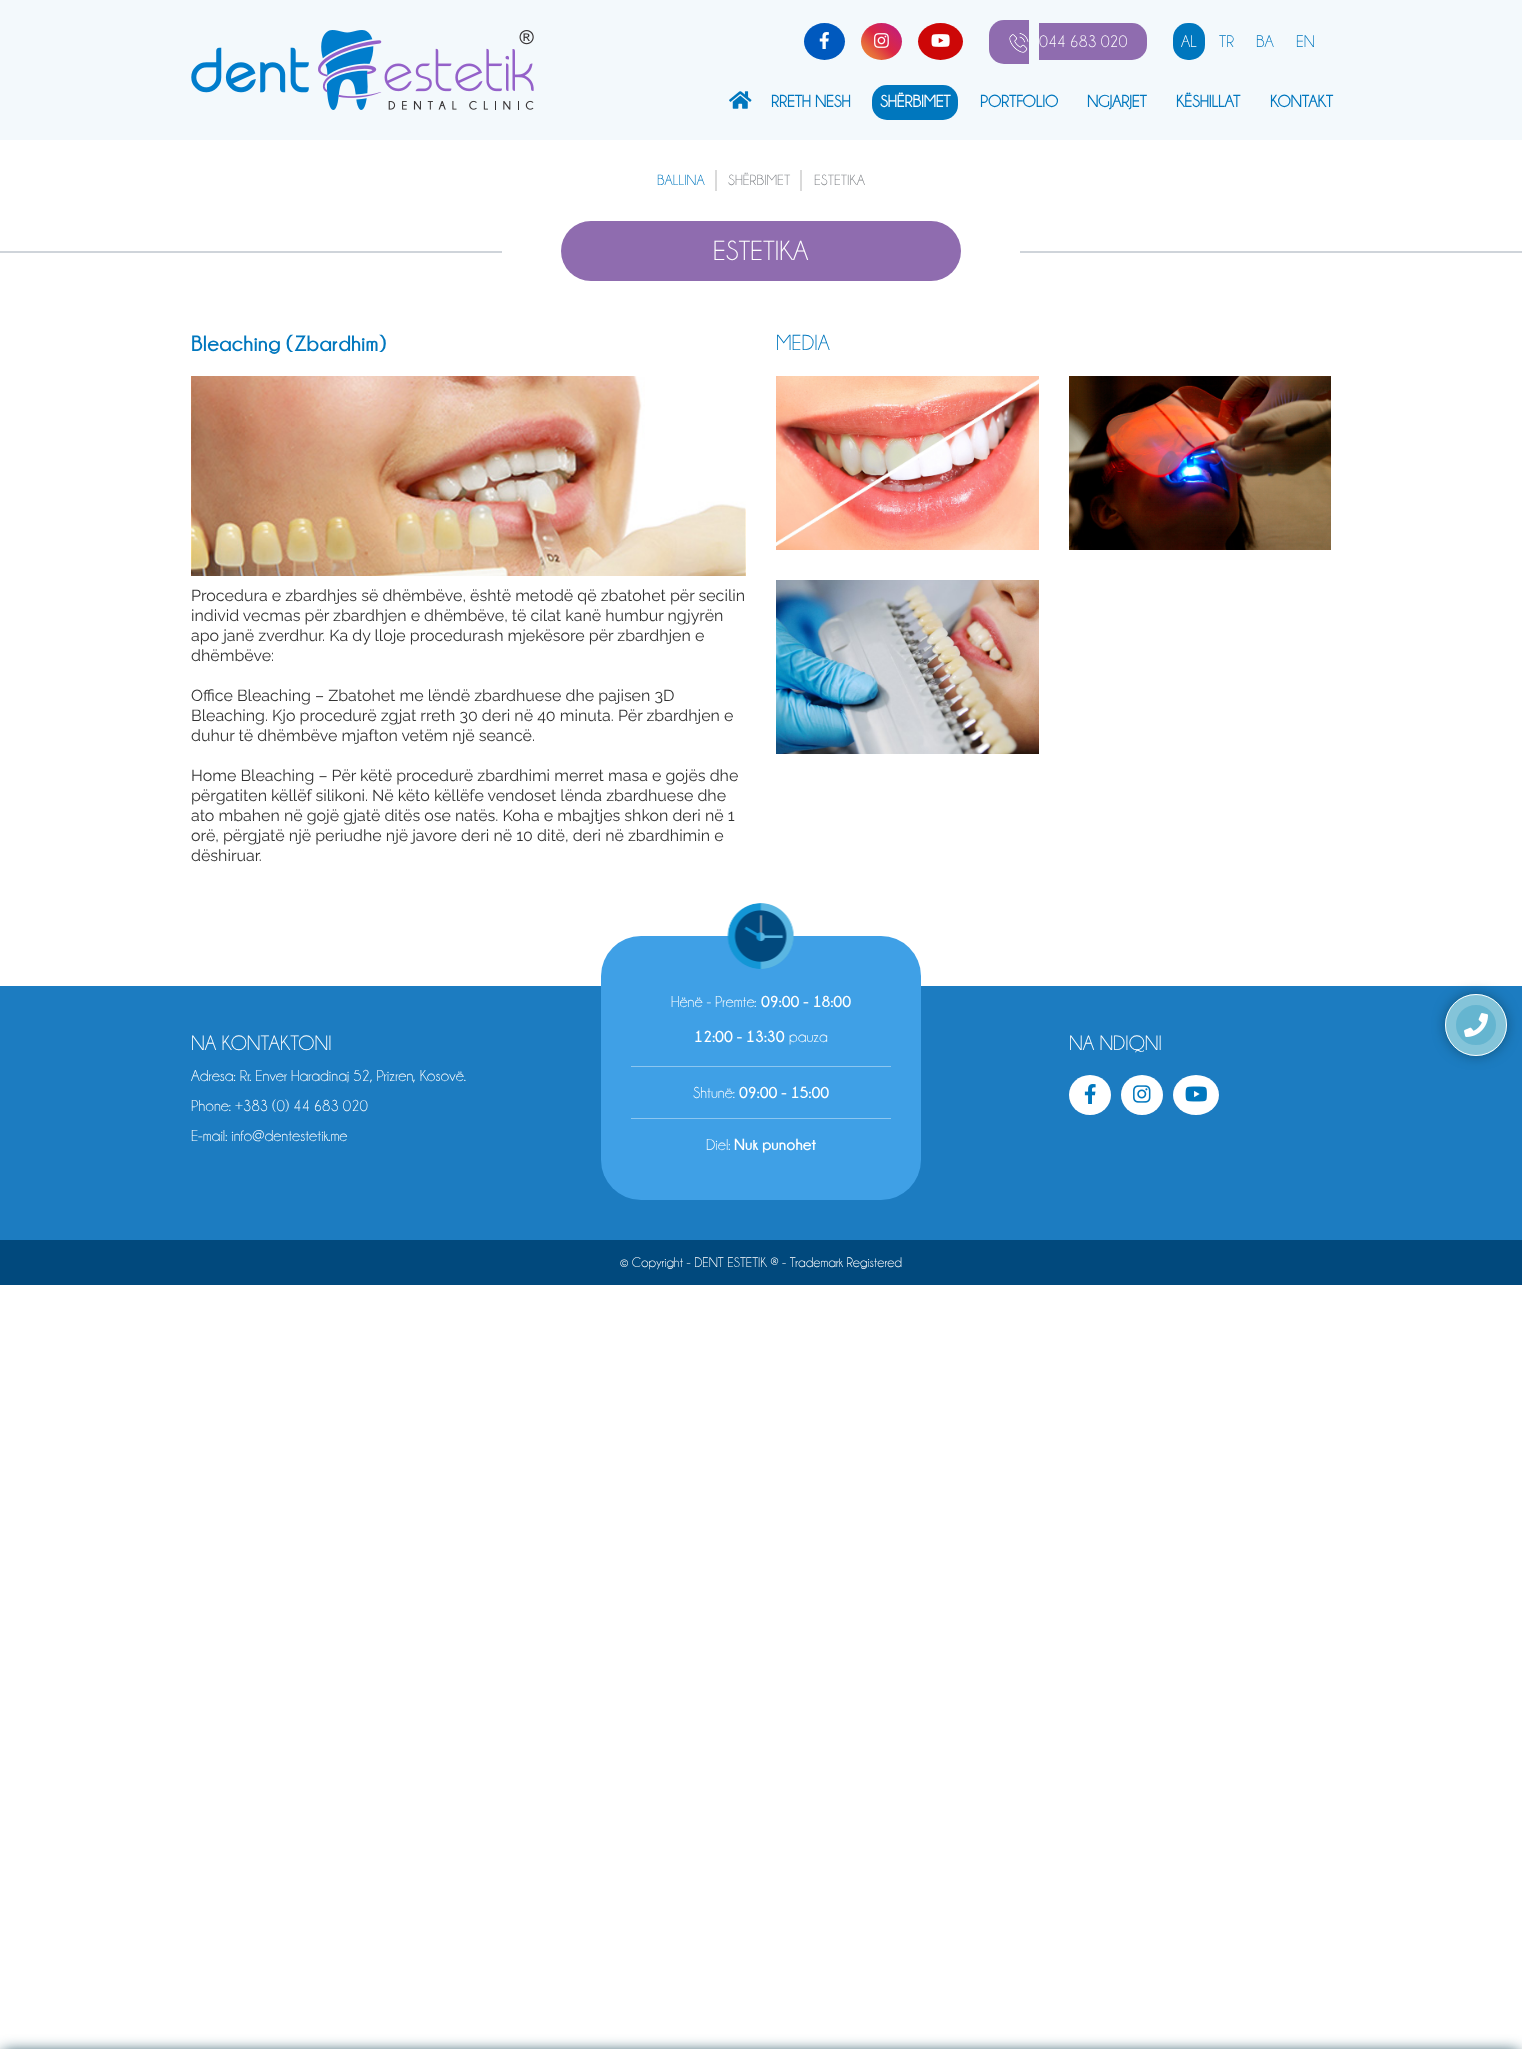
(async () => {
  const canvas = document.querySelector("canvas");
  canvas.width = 1522;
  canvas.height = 2049;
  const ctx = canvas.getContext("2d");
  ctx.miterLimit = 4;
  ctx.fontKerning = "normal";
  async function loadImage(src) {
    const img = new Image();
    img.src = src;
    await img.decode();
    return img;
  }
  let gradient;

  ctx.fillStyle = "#ffffff";
  ctx.fillRect(0, 0, 1522, 2049);
  ctx.fillStyle = "#f3f9fc";
  ctx.fillRect(0, 0, 1522, 140);
  ctx.drawImage(await loadImage("img/1.png"), 191, 30, 343, 80);
  ctx.fillStyle = "#0059be";
  ctx.beginPath();
  ctx.ellipse(824.5, 41.5, 20.5, 18.5, 0, 0, Math.PI * 2);
  ctx.fill();
  ctx.drawImage(await loadImage("img/2.png"), 819, 32, 10, 17);
  gradient = ctx.createLinearGradient(862, 61, 901, 22);
  gradient.addColorStop(0, "#f09433");
  gradient.addColorStop(0.25, "#e6683c");
  gradient.addColorStop(0.5, "#dc2743");
  gradient.addColorStop(0.75, "#cc2366");
  gradient.addColorStop(1, "#bc1888");
  ctx.fillStyle = gradient;
  ctx.beginPath();
  ctx.ellipse(881.5, 41.5, 20.5, 18.5, 0, 0, Math.PI * 2);
  ctx.fill();
  ctx.drawImage(await loadImage("img/3.png"), 874, 33, 15, 15);
  ctx.fillStyle = "#cd0707";
  ctx.beginPath();
  ctx.ellipse(940.5, 41.5, 22.5, 18.5, 0, 0, Math.PI * 2);
  ctx.fill();
  ctx.drawImage(await loadImage("img/4.png"), 931, 34, 19, 13);
  ctx.fillStyle = "#8f6caf";
  ctx.beginPath();
  ctx.roundRect(989, 20, 40, 44, [15, 0, 0, 15]);
  ctx.fill();
  ctx.beginPath();
  ctx.roundRect(1039, 23, 108, 37, [0, 15, 15, 0]);
  ctx.fill();
  ctx.drawImage(await loadImage("img/5.png"), 1009, 33, 20, 20);
  ctx.fillStyle = "#0077be";
  ctx.beginPath();
  ctx.roundRect(1173, 23, 32, 37, 15);
  ctx.fill();
  ctx.drawImage(await loadImage("img/6.png"), 729, 91, 23, 18);
  ctx.beginPath();
  ctx.roundRect(872, 85, 86, 35, 15);
  ctx.fill();
  ctx.fillStyle = "#dadada";
  ctx.fillRect(715, 170, 2, 21);
  ctx.fillRect(800, 170, 2, 21);
  ctx.fillStyle = "#8f6caf";
  ctx.beginPath();
  ctx.roundRect(561, 221, 400, 60, 30);
  ctx.fill();
  ctx.fillStyle = "#cfd4da";
  ctx.fillRect(0, 251, 502, 2);
  ctx.fillRect(1020, 251, 502, 2);
  ctx.drawImage(await loadImage("img/7.png"), 191, 376, 555, 200);
  ctx.drawImage(await loadImage("img/8.png"), 776, 376, 263, 174);
  ctx.drawImage(await loadImage("img/9.png"), 1069, 376, 262, 174);
  ctx.drawImage(await loadImage("img/10.png"), 776, 580, 263, 174);
  ctx.fillStyle = "#03374a";
  ctx.filter = "blur(7.5px)";
  ctx.beginPath();
  ctx.rect(3, 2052, 1516, 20);
  ctx.fill();
  ctx.filter = "none";
  ctx.fillStyle = "#1c7cc1";
  ctx.fillRect(0, 986, 1522, 254);
  ctx.fillStyle = "#063343";
  ctx.filter = "blur(8px)";
  ctx.beginPath();
  ctx.roundRect(1449, 998, 54, 54, 27);
  ctx.fill();
  ctx.filter = "none";
  ctx.fillStyle = "#65b5d0";
  ctx.beginPath();
  ctx.arc(1476, 1025, 31, 0, Math.PI * 2);
  ctx.fill();
  ctx.beginPath();
  ctx.arc(1476, 1025, 25, 0, Math.PI * 2);
  ctx.strokeStyle = "#84c4d9";
  ctx.lineWidth = 10;
  ctx.stroke();
  ctx.beginPath();
  ctx.arc(1476, 1025, 30.5, 0, Math.PI * 2);
  ctx.strokeStyle = "#ffffff";
  ctx.lineWidth = 1;
  ctx.stroke();
  ctx.drawImage(await loadImage("img/11.png"), 1464, 1013, 24, 24);
  ctx.fillStyle = "#3fa0e6";
  ctx.beginPath();
  ctx.roundRect(601, 936, 320, 264, 40);
  ctx.fill();
  ctx.drawImage(await loadImage("img/12.png"), 727, 903, 67, 66);
  ctx.fillStyle = "#8cc6f0";
  ctx.fillRect(631, 1066, 260, 1);
  ctx.fillRect(631, 1118, 260, 1);
  ctx.fillStyle = "#ffffff";
  ctx.beginPath();
  ctx.ellipse(1090, 1095, 21, 20, 0, 0, Math.PI * 2);
  ctx.fill();
  ctx.drawImage(await loadImage("img/13.png"), 1084, 1084, 12, 20);
  ctx.beginPath();
  ctx.ellipse(1142, 1095, 21, 20, 0, 0, Math.PI * 2);
  ctx.fill();
  ctx.drawImage(await loadImage("img/14.png"), 1133, 1085, 18, 18);
  ctx.beginPath();
  ctx.ellipse(1196, 1095, 23, 20, 0, 0, Math.PI * 2);
  ctx.fill();
  ctx.drawImage(await loadImage("img/15.png"), 1185, 1086, 22, 16);
  ctx.fillStyle = "#01497d";
  ctx.fillRect(0, 1240, 1522, 45);
  ctx.font = "17px 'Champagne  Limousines'";
  ctx.fillStyle = "#ffffff";
  ctx.fillText("044 683 020", 1039, 47);
  ctx.fillText("AL", 1181, 47);
  ctx.fillStyle = "#0077be";
  for (const [text, x, y] of [
    ["TR", 1219, 47],
    ["BA", 1256, 47],
    ["EN", 1296, 47],
  ]) {
    ctx.fillText(text, x, y);
  }
  ctx.font = "bold 17px 'Champagne  Limousines'";
  ctx.fillText("RRETH NESH", 771, 107);
  ctx.fillStyle = "#ffffff";
  ctx.fillText("SHËRBIMET", 880, 107);
  ctx.fillStyle = "#0077be";
  for (const [text, x, y] of [
    ["PORTFOLIO", 980, 107],
    ["NGJARJET", 1087, 107],
    ["KËSHILLAT", 1176, 107],
    ["KONTAKT", 1270, 107],
  ]) {
    ctx.fillText(text, x, y);
  }
  ctx.font = "15px 'Champagne  Limousines'";
  ctx.fillText("BALLINA", 657, 185);
  ctx.fillStyle = "#7e8186";
  ctx.fillText("SHËRBIMET", 728, 185);
  ctx.fillText("ESTETIKA", 814, 185);
  ctx.font = "28px 'Champagne  Limousines'";
  ctx.fillStyle = "#ffffff";
  ctx.fillText("ESTETIKA", 713, 260);
  ctx.font = "bold 22px 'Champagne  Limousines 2'";
  ctx.fillStyle = "#0077be";
  ctx.fillText("Bleaching (Zbardhim)", 191, 351);
  ctx.font = "100 16px Raleway";
  ctx.fillStyle = "#333333";
  for (const [text, x, y] of [
    ["Procedura e zbardhjes së dhëmbëve, është metodë që zbatohet për secilin", 191, 601],
    ["individ vecmas për zbardhjen e dhëmbëve, të cilat kanë humbur ngjyrën", 191, 621],
    ["apo janë zverdhur. Ka dy lloje procedurash mjekësore për zbardhjen e", 191, 641],
    ["dhëmbëve:", 191, 661],
    ["Office Bleaching – Zbatohet me lëndë zbardhuese dhe pajisen 3D", 191, 701],
    ["Bleaching. Kjo procedurë zgjat rreth 30 deri në 40 minuta. Për zbardhjen e", 191, 721],
    ["duhur të dhëmbëve mjafton vetëm një seancë.", 191, 741],
    ["Home Bleaching – Për këtë procedurë zbardhimi merret masa e gojës dhe", 191, 781],
    ["përgatiten këllëf silikoni. Në këto këllëfe vendoset lënda zbardhuese dhe", 191, 801],
    ["ato mbahen në gojë gjatë ditës ose natës. Koha e mbajtjes shkon deri në 1", 191, 821],
    ["orë, përgjatë një periudhe një javore deri në 10 ditë, deri në zbardhimin e", 191, 841],
    ["dëshiruar.", 191, 861],
  ]) {
    ctx.fillText(text, x, y);
  }
  ctx.font = "22px 'Champagne  Limousines'";
  ctx.fillStyle = "#0077be";
  ctx.fillText("MEDIA", 776, 350);
  ctx.font = "21px 'Champagne  Limousines'";
  ctx.fillStyle = "#ffffff";
  ctx.fillText("NA KONTAKTONI", 191, 1050);
  ctx.font = "16px 'Champagne  Limousines'";
  for (const [text, x, y] of [
    ["Adresa: Rr. Enver Haradinaj 52, Prizren, Kosovë.", 191, 1081],
    ["Phone: +383 (0) 44 683 020", 191, 1111],
    ["E-mail: info@dentestetik.me", 191, 1141],
    ["Hënë - Premte:", 671, 1007],
  ]) {
    ctx.fillText(text, x, y);
  }
  ctx.font = "bold 16px 'Champagne  Limousines 2'";
  ctx.fillText("09:00 - 18:00", 761, 1007);
  ctx.fillText("12:00 - 13:30", 694, 1042);
  ctx.font = "16px 'Champagne  Limousines'";
  ctx.fillText("pauza", 789, 1042);
  ctx.fillText("Shtunë:", 693, 1098);
  ctx.font = "bold 16px 'Champagne  Limousines 2'";
  ctx.fillText("09:00 - 15:00", 739, 1098);
  ctx.font = "16px 'Champagne  Limousines'";
  ctx.fillText("Diel:", 706, 1150);
  ctx.font = "bold 16px 'Champagne  Limousines 2'";
  ctx.fillText("Nuk punohet", 734, 1150);
  ctx.font = "21px 'Champagne  Limousines'";
  ctx.fillText("NA NDIQNI", 1069, 1050);
  ctx.font = "14px 'Champagne  Limousines'";
  ctx.fillText("© Copyright - DENT ESTETIK ® - Trademark Registered", 620, 1267);
})();
